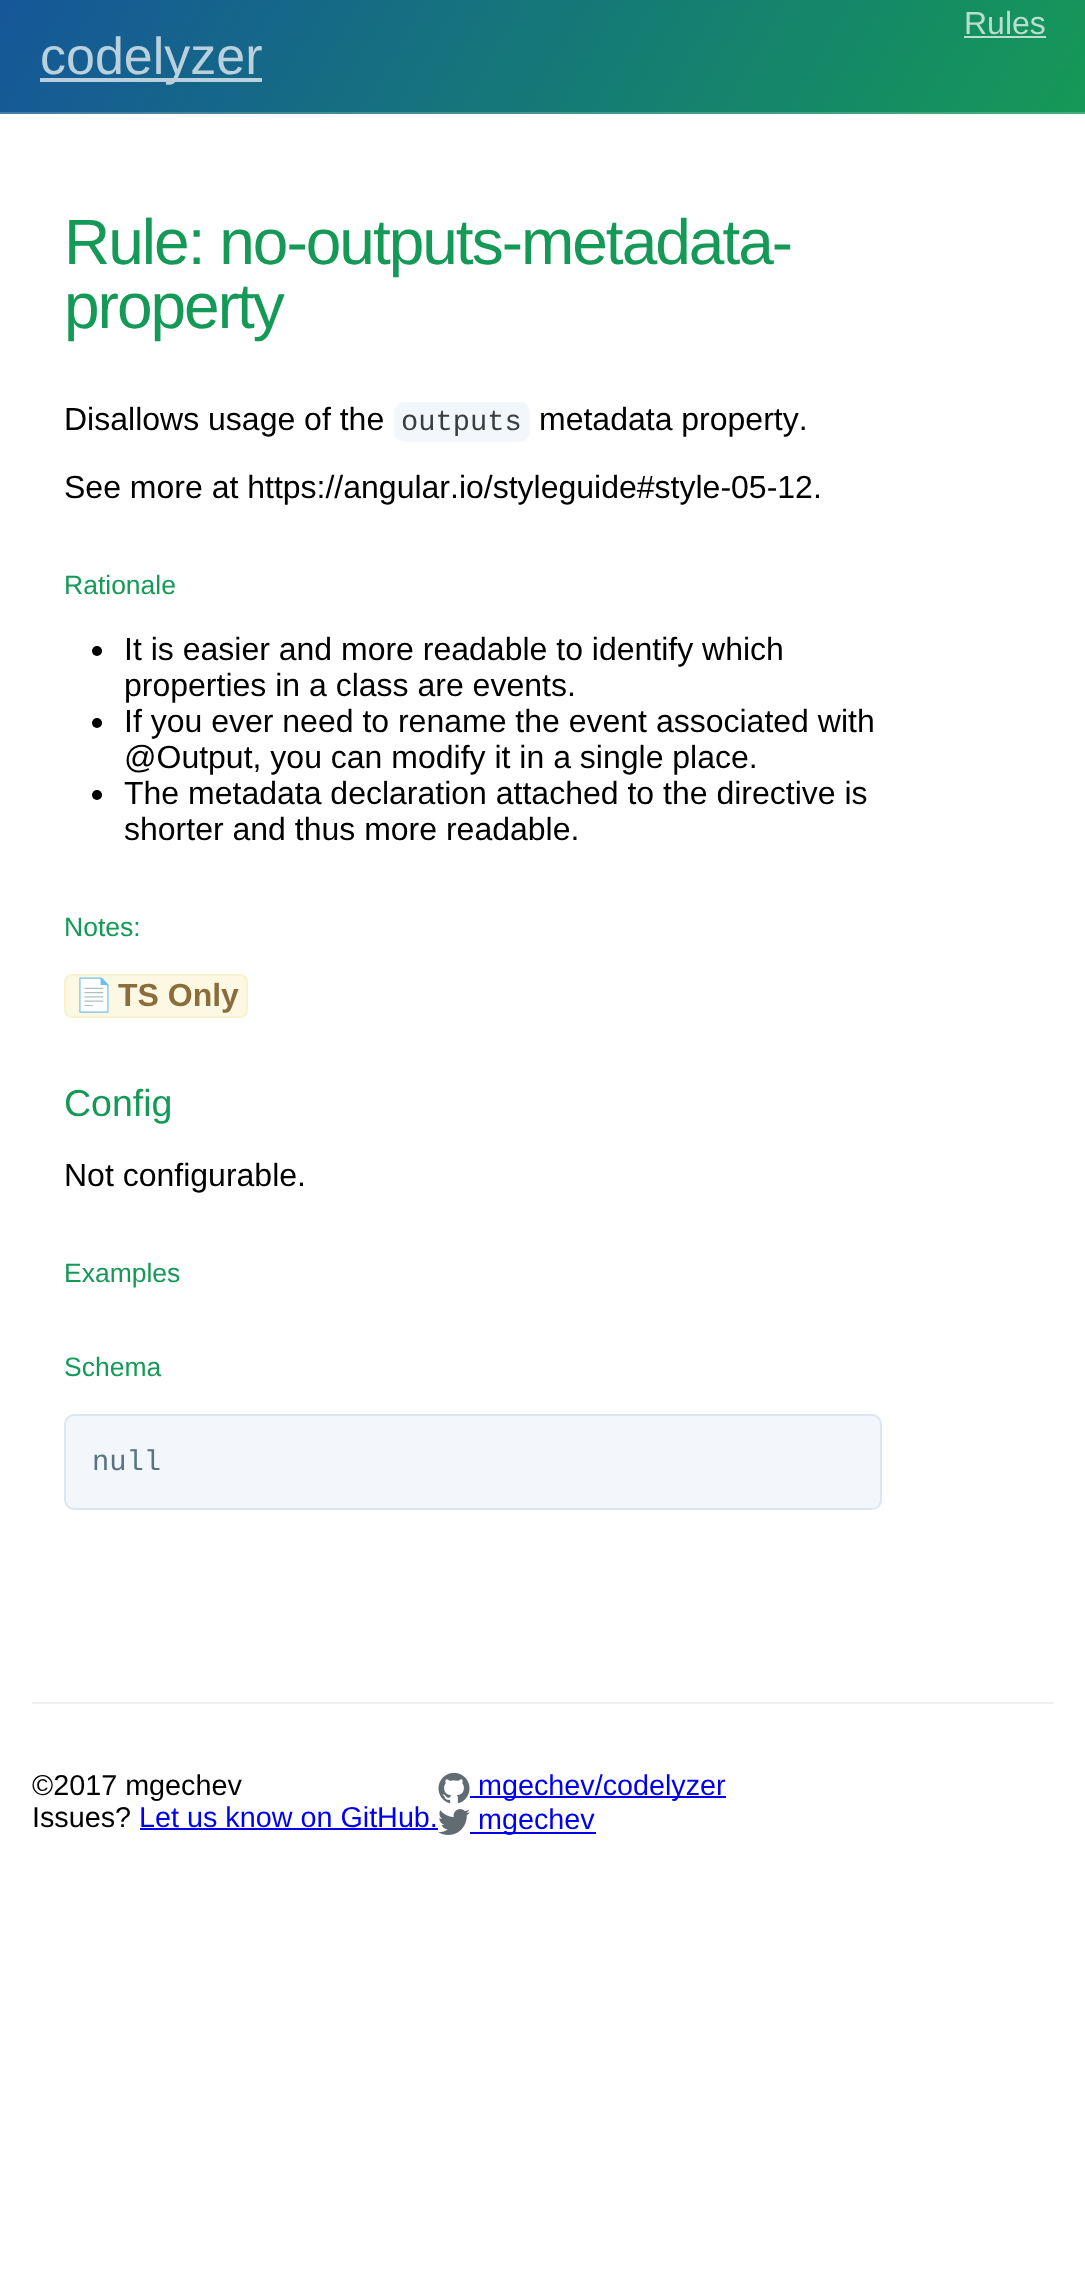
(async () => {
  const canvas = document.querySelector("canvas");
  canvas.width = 1085;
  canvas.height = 2276;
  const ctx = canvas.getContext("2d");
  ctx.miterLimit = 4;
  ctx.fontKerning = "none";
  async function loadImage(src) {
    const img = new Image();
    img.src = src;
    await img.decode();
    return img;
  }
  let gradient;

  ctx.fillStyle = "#ffffff";
  ctx.fillRect(0, 0, 1085, 2276);
  gradient = ctx.createLinearGradient(111, -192, 975, 306);
  gradient.addColorStop(0, "#155799");
  gradient.addColorStop(1, "#159957");
  ctx.fillStyle = gradient;
  ctx.fillRect(0, 0, 1085, 112);
  gradient = ctx.createLinearGradient(111, -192, 975, 306);
  gradient.addColorStop(0, "#b9cde0");
  gradient.addColorStop(1, "#b9e0cd");
  ctx.fillStyle = gradient;
  ctx.fillRect(964, 36, 82, 2);
  ctx.fillRect(40, 78, 222, 4);
  gradient = ctx.createLinearGradient(111, -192, 975, 306);
  gradient.addColorStop(0, "#4479ad");
  gradient.addColorStop(1, "#44ad79");
  ctx.fillStyle = gradient;
  ctx.fillRect(0, 112, 1085, 2);
  ctx.fillStyle = "#f3f6fa";
  ctx.beginPath();
  ctx.roundRect(394, 402, 136, 40, 10);
  ctx.fill();
  ctx.fillStyle = "#000000";
  ctx.beginPath();
  ctx.arc(97, 651, 5, 0, Math.PI * 2);
  ctx.fill();
  ctx.beginPath();
  ctx.arc(97, 723, 5, 0, Math.PI * 2);
  ctx.fill();
  ctx.beginPath();
  ctx.arc(97, 795, 5, 0, Math.PI * 2);
  ctx.fill();
  ctx.fillStyle = "#fcf8e3";
  ctx.beginPath();
  ctx.roundRect(65, 975, 182, 42, 7);
  ctx.fill();
  ctx.strokeStyle = "#faf2cc";
  ctx.lineWidth = 2;
  ctx.stroke();
  ctx.fillStyle = "#f3f6fa";
  ctx.beginPath();
  ctx.roundRect(65, 1415, 816, 94, 9);
  ctx.fill();
  ctx.strokeStyle = "#dce6f0";
  ctx.stroke();
  ctx.fillStyle = "#eff0f1";
  ctx.fillRect(32, 1702, 1022, 2);
  ctx.fillStyle = "#0000ee";
  ctx.fillRect(140, 1828, 298, 2);
  ctx.drawImage(await loadImage("img/1.png"), 438, 1772, 32, 32);
  ctx.fillRect(470, 1796, 256, 2);
  ctx.drawImage(await loadImage("img/2.png"), 438, 1809, 32, 26);
  ctx.fillRect(470, 1832, 126, 2);
  ctx.font = "32px Liberation Sans";
  ctx.fillStyle = "#b9decf";
  ctx.fillText("Rules", 964, 34);
  ctx.font = "52px Liberation Sans";
  ctx.fillStyle = "#b9d0dd";
  ctx.fillText("codelyzer", 40, 74);
  ctx.letterSpacing = "-2px";
  ctx.font = "64px Liberation Sans";
  ctx.fillStyle = "#159957";
  ctx.fillText("Rule: no-outputs-metadata-", 64, 264);
  ctx.fillText("property", 64, 328);
  ctx.letterSpacing = "0px";
  ctx.font = "32px Liberation Sans";
  ctx.fillStyle = "#000000";
  ctx.fillText("Disallows usage of the", 64, 430);
  ctx.font = "28.75px Liberation Mono";
  ctx.fillStyle = "#383e41";
  ctx.fillText("outputs", 401, 430);
  ctx.font = "32px Liberation Sans";
  ctx.fillStyle = "#000000";
  ctx.fillText("metadata property.", 539, 430);
  ctx.fillText("See more at https://angular.io/styleguide#style-05-12.", 64, 498);
  ctx.font = "26.5px Liberation Sans";
  ctx.fillStyle = "#159957";
  ctx.fillText("Rationale", 64, 594);
  ctx.font = "32px Liberation Sans";
  ctx.fillStyle = "#000000";
  for (const [text, x, y] of [
    ["It is easier and more readable to identify which", 124, 660],
    ["properties in a class are events.", 124, 696],
    ["If you ever need to rename the event associated with", 124, 732],
    ["@Output, you can modify it in a single place.", 124, 768],
    ["The metadata declaration attached to the directive is", 124, 804],
    ["shorter and thus more readable.", 124, 840],
  ]) {
    ctx.fillText(text, x, y);
  }
  ctx.font = "26.5px Liberation Sans";
  ctx.fillStyle = "#159957";
  ctx.fillText("Notes:", 64, 936);
  ctx.font = "bold 32px Noto Color Emoji";
  ctx.fillStyle = "#8a6d3b";
  ctx.fillText("📄", 74, 1006);
  ctx.font = "bold 32px Liberation Sans";
  ctx.fillText("TS Only", 118, 1006);
  ctx.font = "37.5px Liberation Sans";
  ctx.fillStyle = "#159957";
  ctx.fillText("Config", 64, 1116);
  ctx.font = "32px Liberation Sans";
  ctx.fillStyle = "#000000";
  ctx.fillText("Not configurable.", 64, 1186);
  ctx.font = "26.5px Liberation Sans";
  ctx.fillStyle = "#159957";
  ctx.fillText("Examples", 64, 1282);
  ctx.fillText("Schema", 64, 1376);
  ctx.font = "28.75px Liberation Mono";
  ctx.fillStyle = "#567482";
  ctx.fillText("null", 92, 1470);
  ctx.font = "28.75px Liberation Sans";
  ctx.fillStyle = "#000000";
  ctx.fillText("©2017 mgechev", 32, 1795);
  ctx.fillText("Issues?", 32, 1827);
  ctx.fillStyle = "#0000ee";
  for (const [text, x, y] of [
    ["Let us know on GitHub.", 139, 1827],
    ["mgechev/codelyzer", 478, 1795],
    ["mgechev", 478, 1829],
  ]) {
    ctx.fillText(text, x, y);
  }
})();
